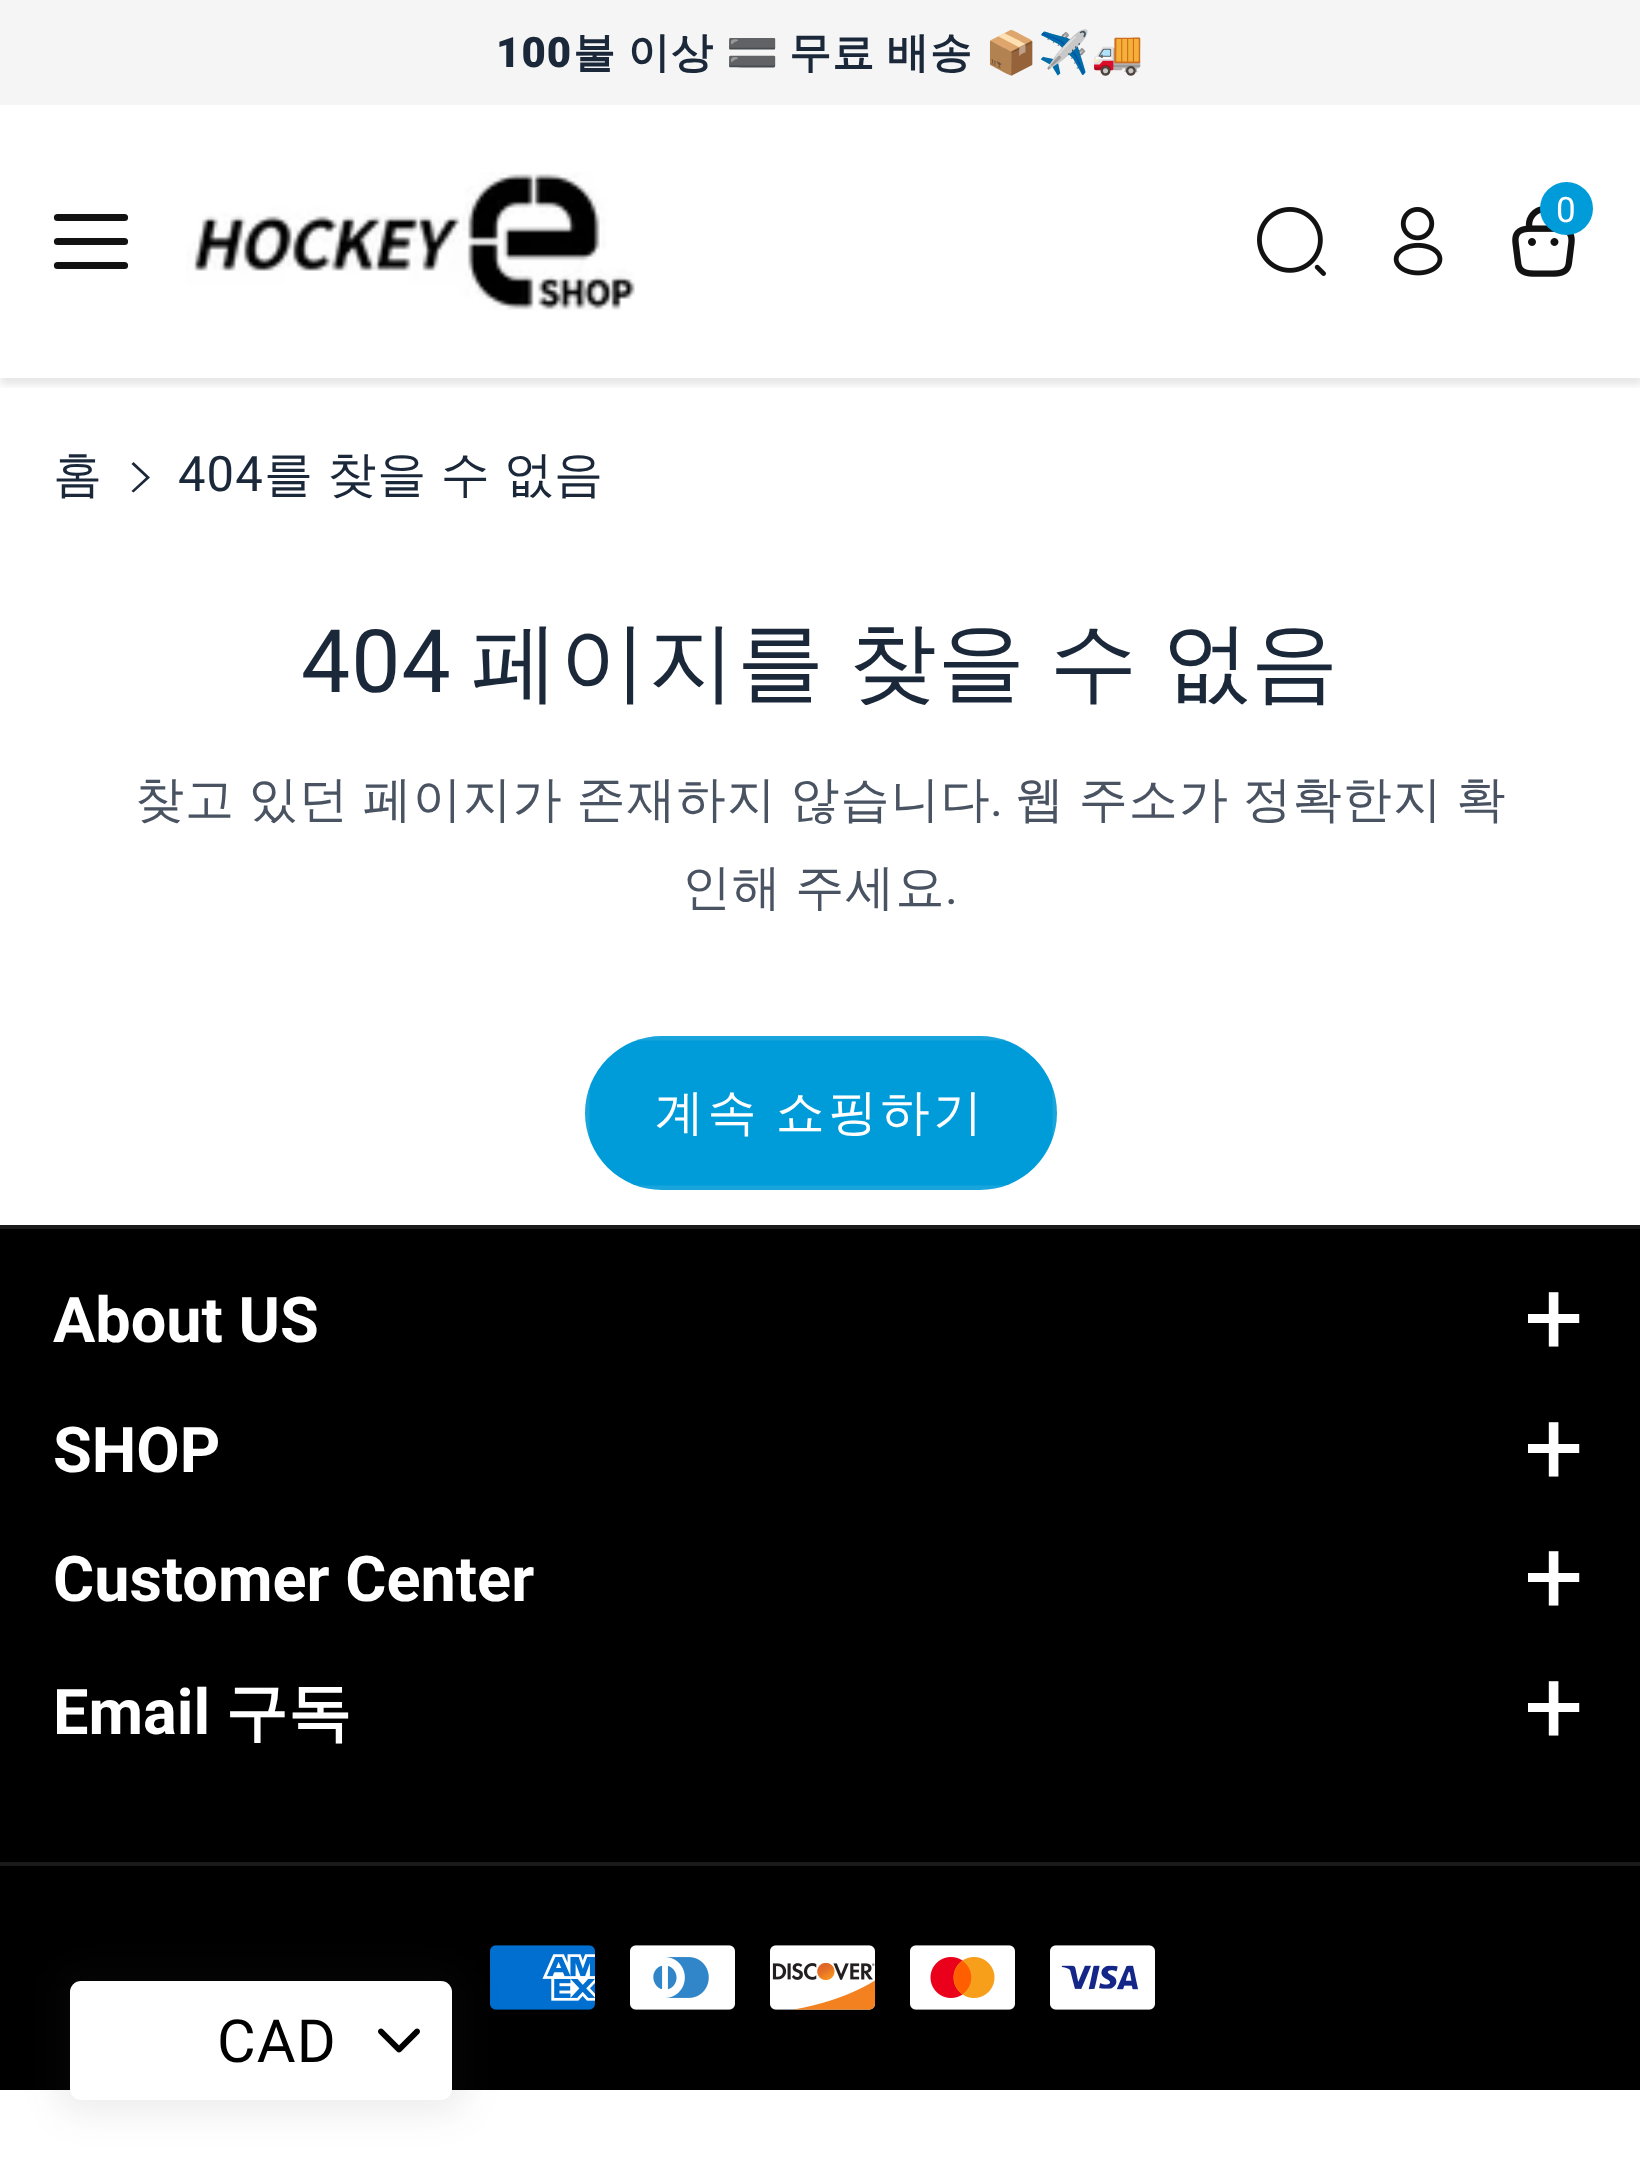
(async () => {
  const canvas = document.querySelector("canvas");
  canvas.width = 1640;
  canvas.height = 2170;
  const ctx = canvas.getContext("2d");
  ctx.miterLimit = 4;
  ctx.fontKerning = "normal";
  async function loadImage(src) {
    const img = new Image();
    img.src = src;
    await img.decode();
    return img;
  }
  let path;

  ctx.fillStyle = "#ffffff";
  ctx.fillRect(0, 0, 1640, 2170);
  ctx.fillStyle = "#f5f5f5";
  ctx.fillRect(0, 0, 1640, 105);
  ctx.save();
  ctx.beginPath();
  ctx.rect(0, 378, 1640, 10);
  ctx.clip();
  ctx.fillStyle = "rgba(18, 18, 18, 0.1)";
  ctx.filter = "blur(3.5px)";
  ctx.beginPath();
  ctx.rect(0, 112, 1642, 273);
  ctx.fill();
  ctx.filter = "none";
  ctx.restore();
  ctx.drawImage(await loadImage("img/1.png"), 186, 172, 449, 139);
  ctx.drawImage(await loadImage("img/2.png"), 1257, 207, 69, 69);
  ctx.drawImage(await loadImage("img/3.png"), 1393, 207, 50, 69);
  ctx.drawImage(await loadImage("img/4.png"), 1512, 206, 63, 71);
  ctx.fillStyle = "#009cda";
  ctx.beginPath();
  ctx.arc(1566.5, 208.5, 26.5, 0, Math.PI * 2);
  ctx.fill();
  path = new Path2D("M57.5 265.5H124.5M57.5 241.5H124.5M57.5 217.5H124.5");
  ctx.strokeStyle = "#121212";
  ctx.lineWidth = 7.2;
  ctx.lineCap = "round";
  ctx.lineJoin = "round";
  ctx.stroke(path);
  ctx.fillStyle = "#1b283a";
  path = new Path2D("M131.5 491L133.5 492.5L150 477.5L133.5 462L131.5 464L146 477.5Z");
  ctx.fill(path);
  ctx.fillStyle = "#009cda";
  ctx.beginPath();
  ctx.roundRect(585, 1036, 472, 154, 77);
  ctx.fill();
  ctx.strokeStyle = "rgba(255, 255, 255, 0.05)";
  ctx.lineWidth = 4;
  ctx.lineJoin = "miter";
  ctx.strokeRect(587, 1038, 468, 150);
  ctx.lineWidth = 5;
  ctx.strokeRect(587.5, 1038.5, 467, 149);
  for (const [x, y, w, h, color] of [
    [0, 1229, 1640, 861, "#000000"],
    [0, 1225, 1640, 4, "#1a1a1a"],
    [0, 1862, 1640, 4, "#1a1a1a"],
  ]) {
    ctx.fillStyle = color;
    ctx.fillRect(x, y, w, h);
  }
  ctx.drawImage(await loadImage("img/5.png"), 490, 1945, 105, 65);
  ctx.drawImage(await loadImage("img/6.png"), 630, 1945, 105, 65);
  ctx.drawImage(await loadImage("img/7.png"), 770, 1945, 106, 65);
  ctx.drawImage(await loadImage("img/8.png"), 910, 1945, 105, 65);
  ctx.drawImage(await loadImage("img/9.png"), 1050, 1945, 105, 65);
  ctx.fillStyle = "rgba(60, 60, 60, 0.09)";
  ctx.filter = "blur(17.5px)";
  ctx.beginPath();
  ctx.roundRect(56, 1967, 410, 147, 25);
  ctx.fill();
  ctx.filter = "none";
  ctx.fillStyle = "#ffffff";
  ctx.beginPath();
  ctx.roundRect(70, 1981, 382, 119, 11);
  ctx.fill();
  ctx.drawImage(await loadImage("img/10.png"), 378, 2028, 42, 25);
  ctx.letterSpacing = "1.05px";
  ctx.font = "900 42px Roboto";
  ctx.fillStyle = "#1b283a";
  ctx.fillText("100", 496, 67);
  ctx.wordSpacing = "-2px";
  ctx.font = "bold 42px WenQuanYi Zen Hei";
  ctx.fillText("불 이상", 573, 67);
  ctx.wordSpacing = "0px";
  ctx.font = "bold 42px Noto Color Emoji";
  ctx.fillText("🟰", 726, 67);
  ctx.wordSpacing = "-2px";
  ctx.font = "bold 42px WenQuanYi Zen Hei";
  ctx.fillText("무료 배송", 789, 67);
  ctx.wordSpacing = "0px";
  ctx.font = "42px Noto Color Emoji";
  ctx.fillText("📦", 985, 67);
  ctx.font = "bold 42px Noto Color Emoji";
  ctx.fillText("✈️🚚", 1038, 67);
  ctx.font = "35px Roboto";
  ctx.fillStyle = "#ffffff";
  ctx.fillText("0", 1556, 222);
  ctx.font = "500 49px WenQuanYi Zen Hei";
  ctx.fillStyle = "#1b283a";
  ctx.fillText("홈", 53, 491);
  ctx.font = "49px Roboto";
  ctx.fillText("404", 178, 491);
  ctx.wordSpacing = "-2.5px";
  ctx.font = "500 49px WenQuanYi Zen Hei";
  ctx.fillText("를 찾을 수 없음", 264, 491);
  ctx.wordSpacing = "0px";
  ctx.font = "87.5px Roboto";
  ctx.fillText("404", 301, 692);
  ctx.wordSpacing = "-3.5px";
  ctx.font = "500 87.5px WenQuanYi Zen Hei";
  ctx.fillText("페이지를 찾을 수 없음", 471, 692);
  ctx.wordSpacing = "-2px";
  ctx.font = "500 49px WenQuanYi Zen Hei";
  ctx.fillStyle = "#495361";
  ctx.fillText("찾고 있던 페이지가 존재하지 않습니다", 135, 816);
  ctx.wordSpacing = "0px";
  ctx.font = "49px Roboto";
  ctx.fillText(".", 990, 816);
  ctx.wordSpacing = "-2px";
  ctx.font = "500 49px WenQuanYi Zen Hei";
  ctx.fillText("웹 주소가 정확한지 확", 1015, 816);
  ctx.wordSpacing = "-2.5px";
  ctx.fillText("인해 주세요", 682, 904);
  ctx.wordSpacing = "0px";
  ctx.font = "49px Roboto";
  ctx.fillText(".", 945, 904);
  ctx.letterSpacing = "3.5px";
  ctx.wordSpacing = "-2.5px";
  ctx.font = "500 49px WenQuanYi Zen Hei";
  ctx.fillStyle = "#ffffff";
  ctx.fillText("계속 쇼핑하기", 655, 1129);
  ctx.letterSpacing = "0px";
  ctx.wordSpacing = "0px";
  ctx.font = "bold 63px Roboto";
  ctx.fillText("About US", 53, 1342);
  ctx.font = "105px Roboto";
  ctx.fillText("+", 1524, 1354);
  ctx.font = "bold 63px Roboto";
  ctx.fillText("SHOP", 53, 1472);
  ctx.font = "105px Roboto";
  ctx.fillText("+", 1524, 1484);
  ctx.font = "bold 63px Roboto";
  ctx.fillText("Customer Center", 53, 1601);
  ctx.font = "105px Roboto";
  ctx.fillText("+", 1524, 1613);
  ctx.font = "bold 63px Roboto";
  ctx.fillText("Email", 53, 1734);
  ctx.font = "bold 63px WenQuanYi Zen Hei";
  ctx.fillText("구독", 225, 1734);
  ctx.font = "105px Roboto";
  ctx.fillText("+", 1524, 1743);
  ctx.letterSpacing = "1.05px";
  ctx.font = "59.5px Roboto";
  ctx.fillStyle = "#000000";
  ctx.fillText("CAD", 217, 2062);
})();
